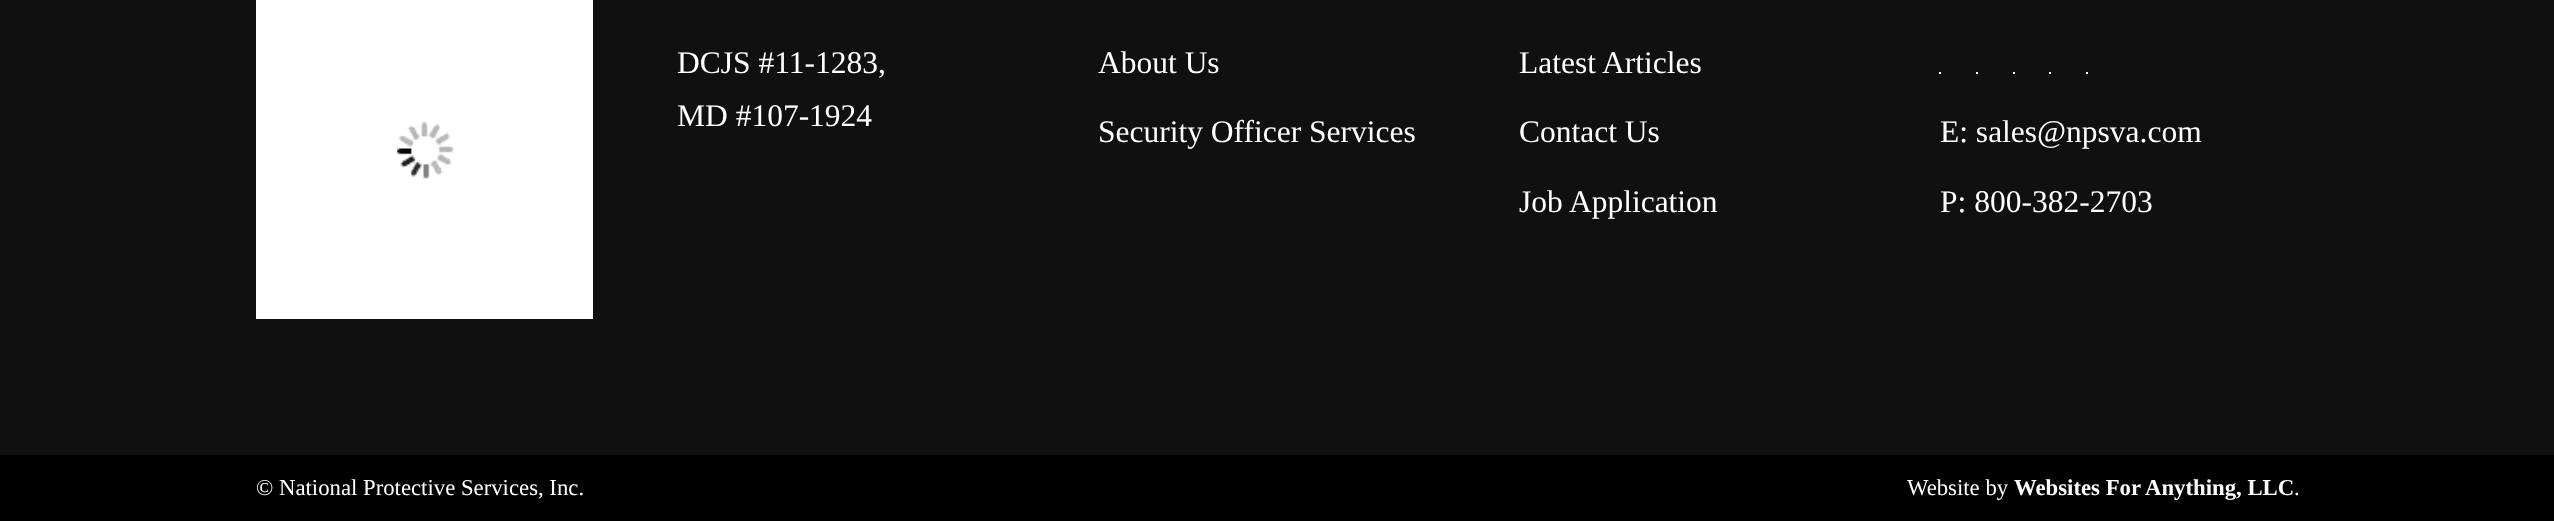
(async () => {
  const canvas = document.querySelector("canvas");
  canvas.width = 2554;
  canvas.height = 521;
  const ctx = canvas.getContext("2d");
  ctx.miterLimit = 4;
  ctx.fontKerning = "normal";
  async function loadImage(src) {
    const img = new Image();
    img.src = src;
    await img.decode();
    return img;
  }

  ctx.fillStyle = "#101010";
  ctx.fillRect(0, 0, 2554, 521);
  ctx.fillStyle = "#ffffff";
  ctx.fillRect(256, 0, 337, 319);
  ctx.drawImage(await loadImage("img/1.png"), 397, 122, 57, 57);
  for (const [x, y, w, h, color] of [
    [1939, 72, 2, 2, "#ffffff"],
    [1976, 72, 2, 2, "#ffffff"],
    [2013, 72, 2, 2, "#ffffff"],
    [2049, 72, 2, 2, "#ffffff"],
    [2086, 72, 2, 2, "#ffffff"],
    [0, 455, 2554, 66, "#000000"],
  ]) {
    ctx.fillStyle = color;
    ctx.fillRect(x, y, w, h);
  }
  ctx.font = "31.5px Liberation Serif";
  ctx.fillStyle = "#ffffff";
  for (const [text, x, y] of [
    ["DCJS #11-1283,", 677, 73],
    ["MD #107-1924", 677, 126],
    ["About Us", 1098, 73],
    ["Security Officer Services", 1098, 142],
    ["Latest Articles", 1519, 73],
    ["Contact Us", 1519, 142],
    ["Job Application", 1519, 212],
    ["E: sales@npsva.com", 1940, 142],
    ["P: 800-382-2703", 1940, 212],
  ]) {
    ctx.fillText(text, x, y);
  }
  ctx.font = "22.75px Liberation Serif";
  ctx.fillText("© National Protective Services, Inc.", 256, 495);
  ctx.fillText("Website by", 1907, 495);
  ctx.font = "bold 22.75px Liberation Serif";
  ctx.fillText("Websites For Anything, LLC", 2014, 495);
  ctx.font = "22.75px Liberation Serif";
  ctx.fillText(".", 2294, 495);
})();
